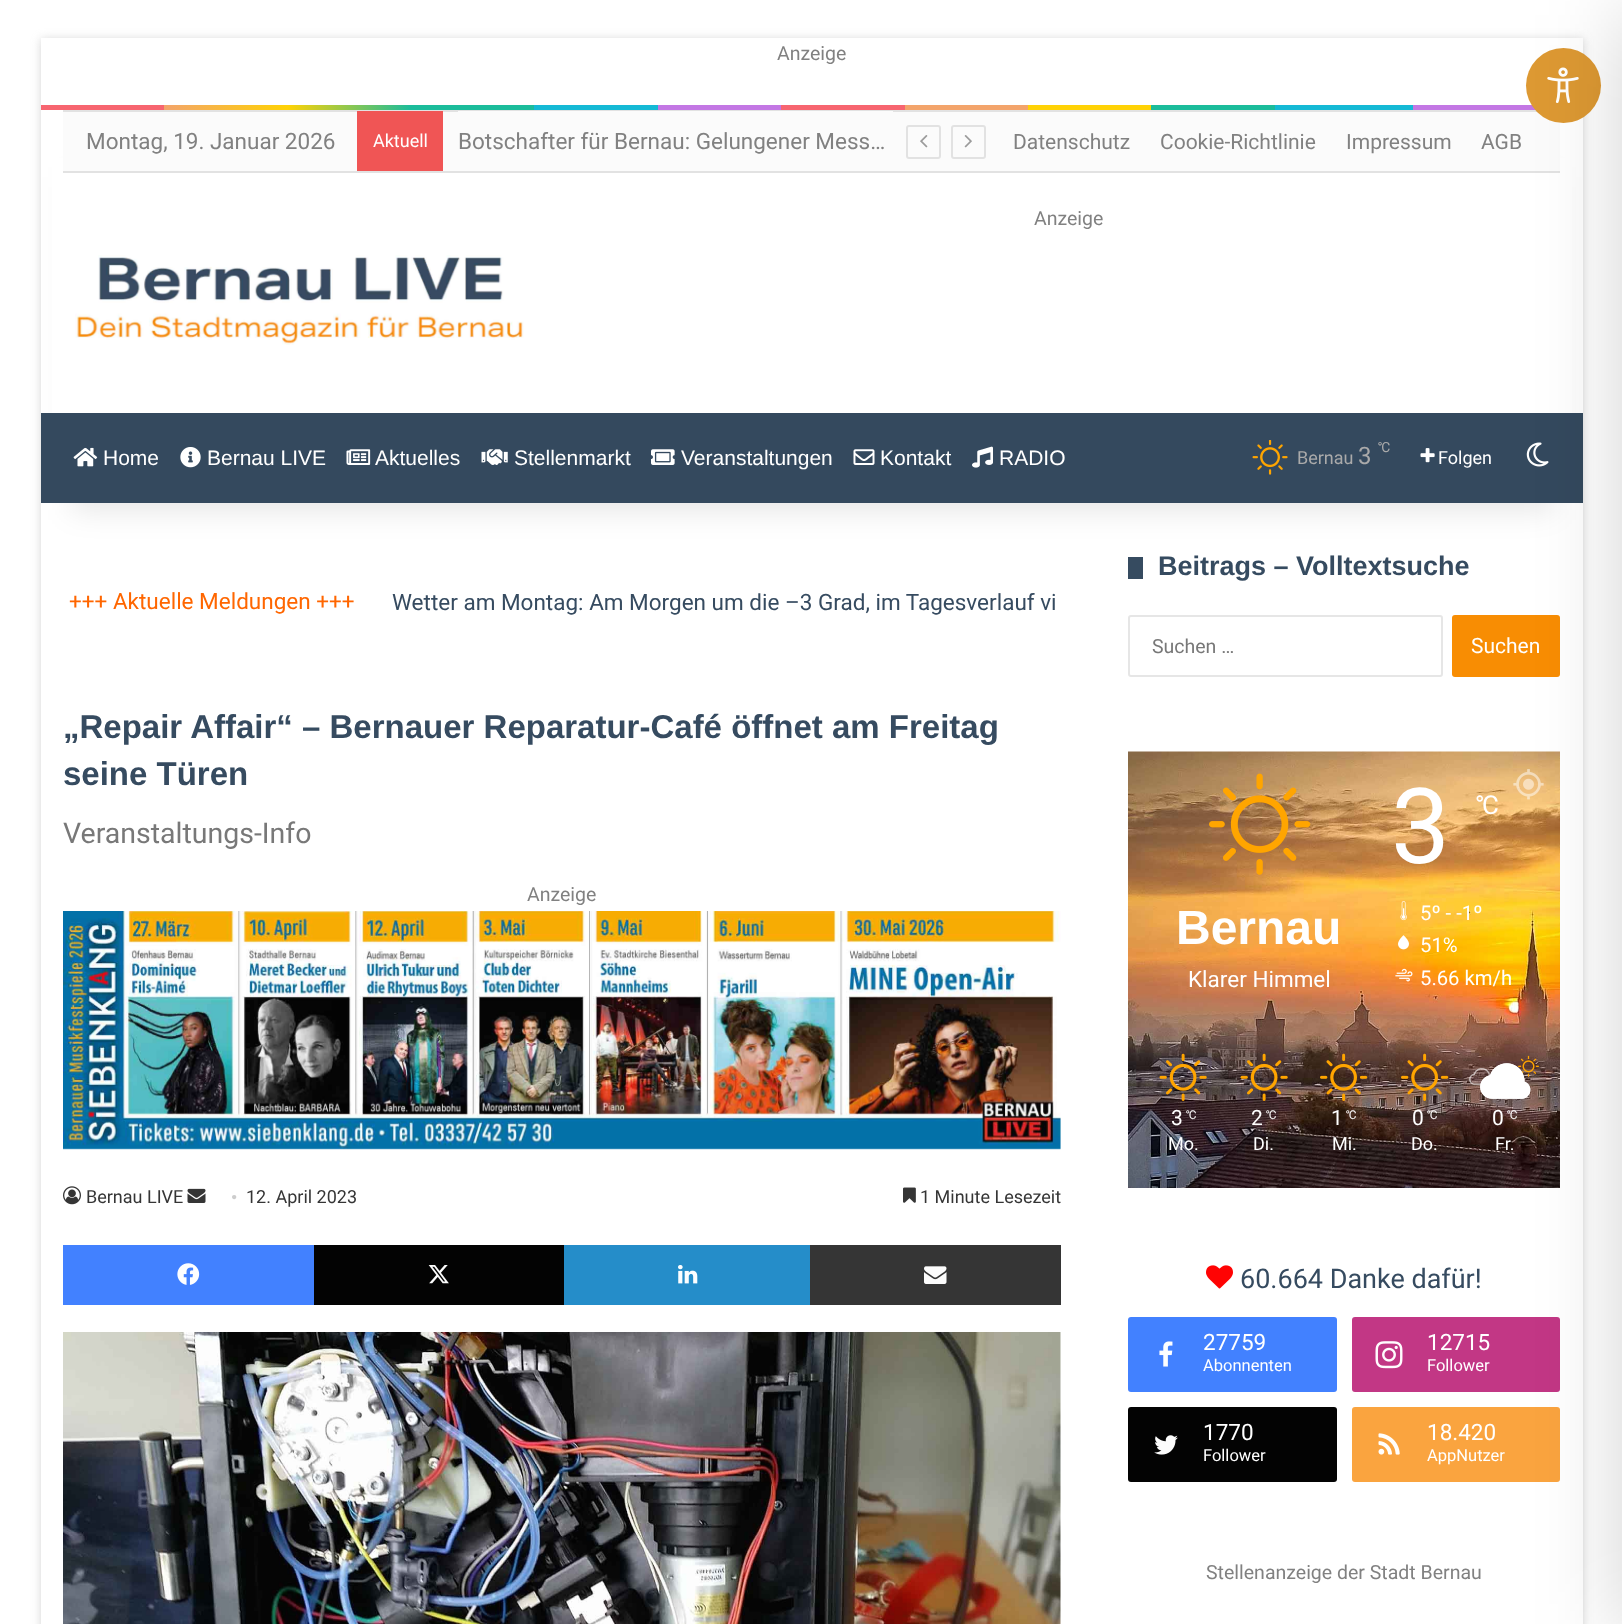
(async () => {
  const canvas = document.querySelector("canvas");
  canvas.width = 1622;
  canvas.height = 1624;
  const ctx = canvas.getContext("2d");
  ctx.miterLimit = 4;
  ctx.fontKerning = "normal";
  async function loadImage(src) {
    const img = new Image();
    img.src = src;
    await img.decode();
    return img;
  }
  let gradient;

  ctx.fillStyle = "#ffffff";
  ctx.fillRect(0, 0, 1622, 1624);
  ctx.fillStyle = "rgba(171, 171, 171, 0.5)";
  ctx.filter = "blur(5px)";
  ctx.beginPath();
  ctx.rect(41, 39, 1542, 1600);
  ctx.fill();
  ctx.filter = "none";
  ctx.fillStyle = "#ffffff";
  ctx.fillRect(41, 38, 1542, 1586);
  gradient = ctx.createLinearGradient(41, 107, 1583, 107);
  gradient.addColorStop(0, "#f76570");
  gradient.addColorStop(0.08, "#f76570");
  gradient.addColorStop(0.08, "#f3a46b");
  gradient.addColorStop(0.16, "#ffd205");
  gradient.addColorStop(0.24, "#1bbc9b");
  gradient.addColorStop(0.32, "#1bbc9b");
  gradient.addColorStop(0.32, "#14b9d5");
  gradient.addColorStop(0.4, "#14b9d5");
  gradient.addColorStop(0.4, "#c377e4");
  gradient.addColorStop(0.48, "#c377e4");
  gradient.addColorStop(0.48, "#f76570");
  gradient.addColorStop(0.56, "#f76570");
  gradient.addColorStop(0.56, "#f3a46b");
  gradient.addColorStop(0.64, "#f3a46b");
  gradient.addColorStop(0.64, "#ffd205");
  gradient.addColorStop(0.72, "#ffd205");
  gradient.addColorStop(0.72, "#1bbc9b");
  gradient.addColorStop(0.8, "#1bbc9b");
  gradient.addColorStop(0.8, "#14b9d5");
  gradient.addColorStop(0.89, "#14b9d5");
  gradient.addColorStop(0.89, "#c377e4");
  gradient.addColorStop(1, "#c377e4");
  ctx.fillStyle = gradient;
  ctx.fillRect(41, 105, 1495, 5);
  ctx.fillStyle = "rgba(0, 0, 0, 0.1)";
  ctx.filter = "blur(15px)";
  ctx.beginPath();
  ctx.rect(71, 177, 1482, 333);
  ctx.fill();
  ctx.filter = "none";
  for (const [x, y, w, h, color] of [
    [52, 158, 1520, 255, "#ffffff"],
    [63, 112, 1497, 59, "#fbfbfb"],
    [63, 110, 1474, 2, "#e2e2e2"],
    [63, 171, 1497, 2, "#e2e2e2"],
    [357, 111, 86, 60, "#f05555"],
    [458, 111, 435, 1, "#fbfbfb"],
  ]) {
    ctx.fillStyle = color;
    ctx.fillRect(x, y, w, h);
  }
  ctx.beginPath();
  ctx.roundRect(907, 126, 33, 32, 2);
  ctx.strokeStyle = "#e2e2e2";
  ctx.lineWidth = 2;
  ctx.stroke();
  ctx.drawImage(await loadImage("img/1.png"), 920, 135, 8, 13);
  ctx.beginPath();
  ctx.roundRect(952, 126, 33, 32, 2);
  ctx.stroke();
  ctx.drawImage(await loadImage("img/2.png"), 964, 135, 8, 13);
  ctx.drawImage(await loadImage("img/3.png"), 75, 255, 449, 90);
  ctx.fillStyle = "#34495e";
  ctx.fillRect(41, 413, 1542, 90);
  ctx.drawImage(await loadImage("img/4.png"), 73, 447, 25, 20);
  ctx.drawImage(await loadImage("img/5.png"), 180, 447, 21, 21);
  ctx.drawImage(await loadImage("img/6.png"), 346, 449, 25, 16);
  ctx.drawImage(await loadImage("img/7.png"), 481, 449, 27, 16);
  ctx.drawImage(await loadImage("img/8.png"), 651, 449, 24, 16);
  ctx.drawImage(await loadImage("img/9.png"), 853, 449, 22, 16);
  ctx.drawImage(await loadImage("img/10.png"), 972, 446, 21, 22);
  ctx.drawImage(await loadImage("img/11.png"), 1252, 440, 36, 35);
  ctx.drawImage(await loadImage("img/12.png"), 1420, 448, 15, 15);
  ctx.drawImage(await loadImage("img/13.png"), 1526, 442, 23, 25);
  ctx.drawImage(await loadImage("img/14.png"), 63, 911, 998, 239);
  ctx.drawImage(await loadImage("img/15.png"), 63, 1186, 18, 19);
  ctx.drawImage(await loadImage("img/16.png"), 187, 1188, 19, 15);
  ctx.drawImage(await loadImage("img/17.png"), 903, 1187, 13, 16);
  ctx.fillStyle = "#4281ff";
  ctx.fillRect(63, 1245, 251, 60);
  ctx.drawImage(await loadImage("img/18.png"), 177, 1263, 23, 22);
  ctx.fillStyle = "#030303";
  ctx.fillRect(314, 1245, 250, 60);
  ctx.drawImage(await loadImage("img/19.png"), 428, 1265, 21, 19);
  ctx.fillStyle = "#258dc9";
  ctx.fillRect(564, 1245, 246, 60);
  ctx.drawImage(await loadImage("img/20.png"), 678, 1265, 20, 19);
  ctx.fillStyle = "#353535";
  ctx.fillRect(810, 1245, 251, 60);
  ctx.drawImage(await loadImage("img/21.png"), 924, 1266, 23, 18);
  ctx.drawImage(await loadImage("img/22.png"), 63, 1332, 998, 292);
  ctx.fillStyle = "#364b60";
  ctx.fillRect(1128, 557, 15, 22);
  ctx.beginPath();
  ctx.roundRect(1129, 616, 313, 60, 2);
  ctx.strokeStyle = "#e6e6e6";
  ctx.stroke();
  ctx.fillStyle = "#f88d03";
  ctx.beginPath();
  ctx.roundRect(1452, 615, 108, 62, 3);
  ctx.fill();
  ctx.drawImage(await loadImage("img/23.png"), 1128, 751, 432, 437);
  ctx.drawImage(await loadImage("img/24.png"), 1209, 773, 102, 102);
  ctx.drawImage(await loadImage("img/25.png"), 1400, 901, 7, 20);
  ctx.drawImage(await loadImage("img/26.png"), 1398, 935, 11, 15);
  ctx.drawImage(await loadImage("img/27.png"), 1395, 968, 18, 14);
  ctx.drawImage(await loadImage("img/28.png"), 1159, 1053, 48, 48);
  ctx.drawImage(await loadImage("img/29.png"), 1240, 1053, 48, 48);
  ctx.drawImage(await loadImage("img/30.png"), 1320, 1053, 48, 48);
  ctx.drawImage(await loadImage("img/31.png"), 1401, 1053, 48, 48);
  ctx.drawImage(await loadImage("img/32.png"), 1518, 1055, 21, 22);
  ctx.drawImage(await loadImage("img/35.png"), 1469, 1068, 22, 17);
  ctx.drawImage(await loadImage("img/33.png"), 1480, 1063, 51, 36);
  ctx.drawImage(await loadImage("img/34.png"), 1480, 1063, 51, 36);
  ctx.drawImage(await loadImage("img/36.png"), 1513, 769, 31, 31);
  ctx.drawImage(await loadImage("img/37.png"), 1206, 1265, 27, 24);
  ctx.fillStyle = "#4281ff";
  ctx.beginPath();
  ctx.roundRect(1128, 1317, 209, 75, 3);
  ctx.fill();
  ctx.drawImage(await loadImage("img/38.png"), 1159, 1341, 14, 26);
  ctx.fillStyle = "#c23785";
  ctx.beginPath();
  ctx.roundRect(1352, 1317, 208, 75, 3);
  ctx.fill();
  ctx.drawImage(await loadImage("img/39.png"), 1375, 1341, 28, 28);
  ctx.fillStyle = "#030303";
  ctx.beginPath();
  ctx.roundRect(1128, 1407, 209, 75, 3);
  ctx.fill();
  ctx.drawImage(await loadImage("img/40.png"), 1154, 1435, 24, 20);
  ctx.fillStyle = "#faa43f";
  ctx.beginPath();
  ctx.roundRect(1352, 1407, 208, 75, 3);
  ctx.fill();
  ctx.drawImage(await loadImage("img/41.png"), 1378, 1433, 22, 22);
  ctx.fillStyle = "#dd9933";
  ctx.beginPath();
  ctx.arc(1563.5, 85.5, 37.5, 0, Math.PI * 2);
  ctx.fill();
  ctx.drawImage(await loadImage("img/42.png"), 1547, 67, 32, 36);
  ctx.fillStyle = "rgba(0, 0, 0, 0.2)";
  ctx.filter = "blur(45px)";
  ctx.beginPath();
  ctx.rect(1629, 15, 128, 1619);
  ctx.fill();
  ctx.filter = "none";
  ctx.font = "19.5px Roboto";
  ctx.fillStyle = "#818181";
  ctx.fillText("Anzeige", 777, 60);
  ctx.font = "22.5px Roboto";
  ctx.fillText("Montag, 19. Januar 2026", 86, 149);
  ctx.font = "18px Roboto";
  ctx.fillStyle = "#ffffff";
  ctx.fillText("Aktuell", 373, 147);
  ctx.font = "22.5px Roboto";
  ctx.fillStyle = "#818181";
  ctx.fillText("Botschafter für Bernau: Gelungener Mess…", 458, 149);
  ctx.font = "21px Roboto";
  for (const [text, x, y] of [
    ["Datenschutz", 1013, 149],
    ["Cookie-Richtlinie", 1160, 149],
    ["Impressum", 1346, 149],
    ["AGB", 1481, 149],
  ]) {
    ctx.fillText(text, x, y);
  }
  ctx.font = "19.5px Roboto";
  ctx.fillText("Anzeige", 1034, 225);
  ctx.font = "21px Liberation Sans";
  ctx.fillStyle = "#ffffff";
  for (const [text, x, y] of [
    ["Home", 103, 465],
    ["Bernau LIVE", 207, 465],
    ["Aktuelles", 375, 465],
    ["Stellenmarkt", 514, 465],
    ["Veranstaltungen", 681, 465],
    ["Kontakt", 880, 465],
    ["RADIO", 999, 465],
  ]) {
    ctx.fillText(text, x, y);
  }
  ctx.font = "18px Roboto";
  ctx.fillStyle = "#aaaaaa";
  ctx.fillText("Bernau", 1297, 464);
  ctx.font = "24px Roboto";
  ctx.fillText("3", 1358, 464);
  ctx.font = "14px 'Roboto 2'";
  ctx.fillText("℃", 1378, 452);
  ctx.font = "18px Roboto";
  ctx.fillStyle = "#ffffff";
  ctx.fillText("Folgen", 1438, 464);
  ctx.font = "22.5px Roboto";
  ctx.fillStyle = "#ff6600";
  ctx.fillText("+++ Aktuelle Meldungen +++", 69, 609);
  ctx.fillStyle = "#364b60";
  ctx.fillText("Wetter am Montag: Am Morgen um die –3 Grad, im Tagesverlauf vi", 392, 610);
  ctx.font = "bold 33px Liberation Sans";
  ctx.fillText("„Repair Affair“ – Bernauer Reparatur-Café öffnet am Freitag", 63, 738);
  ctx.fillText("seine Türen", 63, 785);
  ctx.font = "28.5px Roboto";
  ctx.fillStyle = "#787878";
  ctx.fillText("Veranstaltungs-Info", 63, 843);
  ctx.font = "19.5px Roboto";
  ctx.fillStyle = "#818181";
  ctx.fillText("Anzeige", 527, 901);
  ctx.font = "18px Roboto";
  ctx.fillStyle = "#353535";
  ctx.fillText("Bernau LIVE", 86, 1203);
  ctx.font = "18px Liberation Serif";
  ctx.fillStyle = "#cdcdcd";
  ctx.fillText("•", 231, 1203);
  ctx.font = "18px Roboto";
  ctx.fillStyle = "#353535";
  ctx.fillText("12. April 2023", 246, 1203);
  ctx.fillText("1 Minute Lesezeit", 920, 1203);
  ctx.font = "bold 27px Liberation Sans";
  ctx.fillStyle = "#364b60";
  ctx.fillText("Beitrags – Volltextsuche", 1158, 575);
  ctx.font = "19.5px Roboto";
  ctx.fillStyle = "#787878";
  ctx.fillText("Suchen …", 1152, 653);
  ctx.font = "21px Roboto";
  ctx.fillStyle = "#ffffff";
  ctx.fillText("Suchen", 1471, 653);
  ctx.font = "bold 48px Liberation Sans";
  ctx.fillText("Bernau", 1176, 944);
  ctx.font = "22.5px Roboto";
  ctx.fillText("Klarer Himmel", 1188, 987);
  ctx.font = "105px Roboto";
  ctx.fillText("3", 1391, 863);
  ctx.font = "26px 'Roboto 2'";
  ctx.fillText("℃", 1476, 814);
  ctx.font = "20.25px Roboto";
  for (const [text, x, y] of [
    ["5º - -1º", 1420, 920],
    ["51%", 1420, 952],
    ["5.66 km/h", 1420, 985],
  ]) {
    ctx.fillText(text, x, y);
  }
  ctx.font = "21px Roboto";
  ctx.fillText("3", 1171, 1125);
  ctx.font = "12px 'Roboto 2'";
  ctx.fillText("℃", 1186, 1119);
  ctx.font = "18px Roboto";
  ctx.fillText("Mo.", 1168, 1150);
  ctx.font = "21px Roboto";
  ctx.fillText("2", 1251, 1125);
  ctx.font = "12px 'Roboto 2'";
  ctx.fillText("℃", 1266, 1119);
  ctx.font = "18px Roboto";
  ctx.fillText("Di.", 1253, 1150);
  ctx.font = "21px Roboto";
  ctx.fillText("1", 1331, 1125);
  ctx.font = "12px 'Roboto 2'";
  ctx.fillText("℃", 1346, 1119);
  ctx.font = "18px Roboto";
  ctx.fillText("Mi.", 1332, 1150);
  ctx.font = "21px Roboto";
  ctx.fillText("0", 1412, 1125);
  ctx.font = "12px 'Roboto 2'";
  ctx.fillText("℃", 1427, 1119);
  ctx.font = "18px Roboto";
  ctx.fillText("Do.", 1411, 1150);
  ctx.font = "21px Roboto";
  ctx.fillText("0", 1492, 1125);
  ctx.font = "12px 'Roboto 2'";
  ctx.fillText("℃", 1507, 1119);
  ctx.font = "18px Roboto";
  ctx.fillText("Fr.", 1495, 1150);
  ctx.font = "27px Roboto";
  ctx.fillStyle = "#364b60";
  ctx.fillText("60.664 Danke dafür!", 1240, 1288);
  ctx.font = "22.5px Roboto";
  ctx.fillStyle = "#ffffff";
  ctx.fillText("27759", 1203, 1350);
  ctx.font = "16.5px Roboto";
  ctx.fillText("Abonnenten", 1203, 1371);
  ctx.font = "22.5px Roboto";
  ctx.fillText("12715", 1427, 1350);
  ctx.font = "16.5px Roboto";
  ctx.fillText("Follower", 1427, 1371);
  ctx.font = "22.5px Roboto";
  ctx.fillText("1770", 1203, 1440);
  ctx.font = "16.5px Roboto";
  ctx.fillText("Follower", 1203, 1461);
  ctx.font = "22.5px Roboto";
  ctx.fillText("18.420", 1427, 1440);
  ctx.font = "16.5px Roboto";
  ctx.fillText("AppNutzer", 1427, 1461);
  ctx.font = "19.5px Roboto";
  ctx.fillStyle = "#818181";
  ctx.fillText("Stellenanzeige der Stadt Bernau", 1206, 1579);
})();
